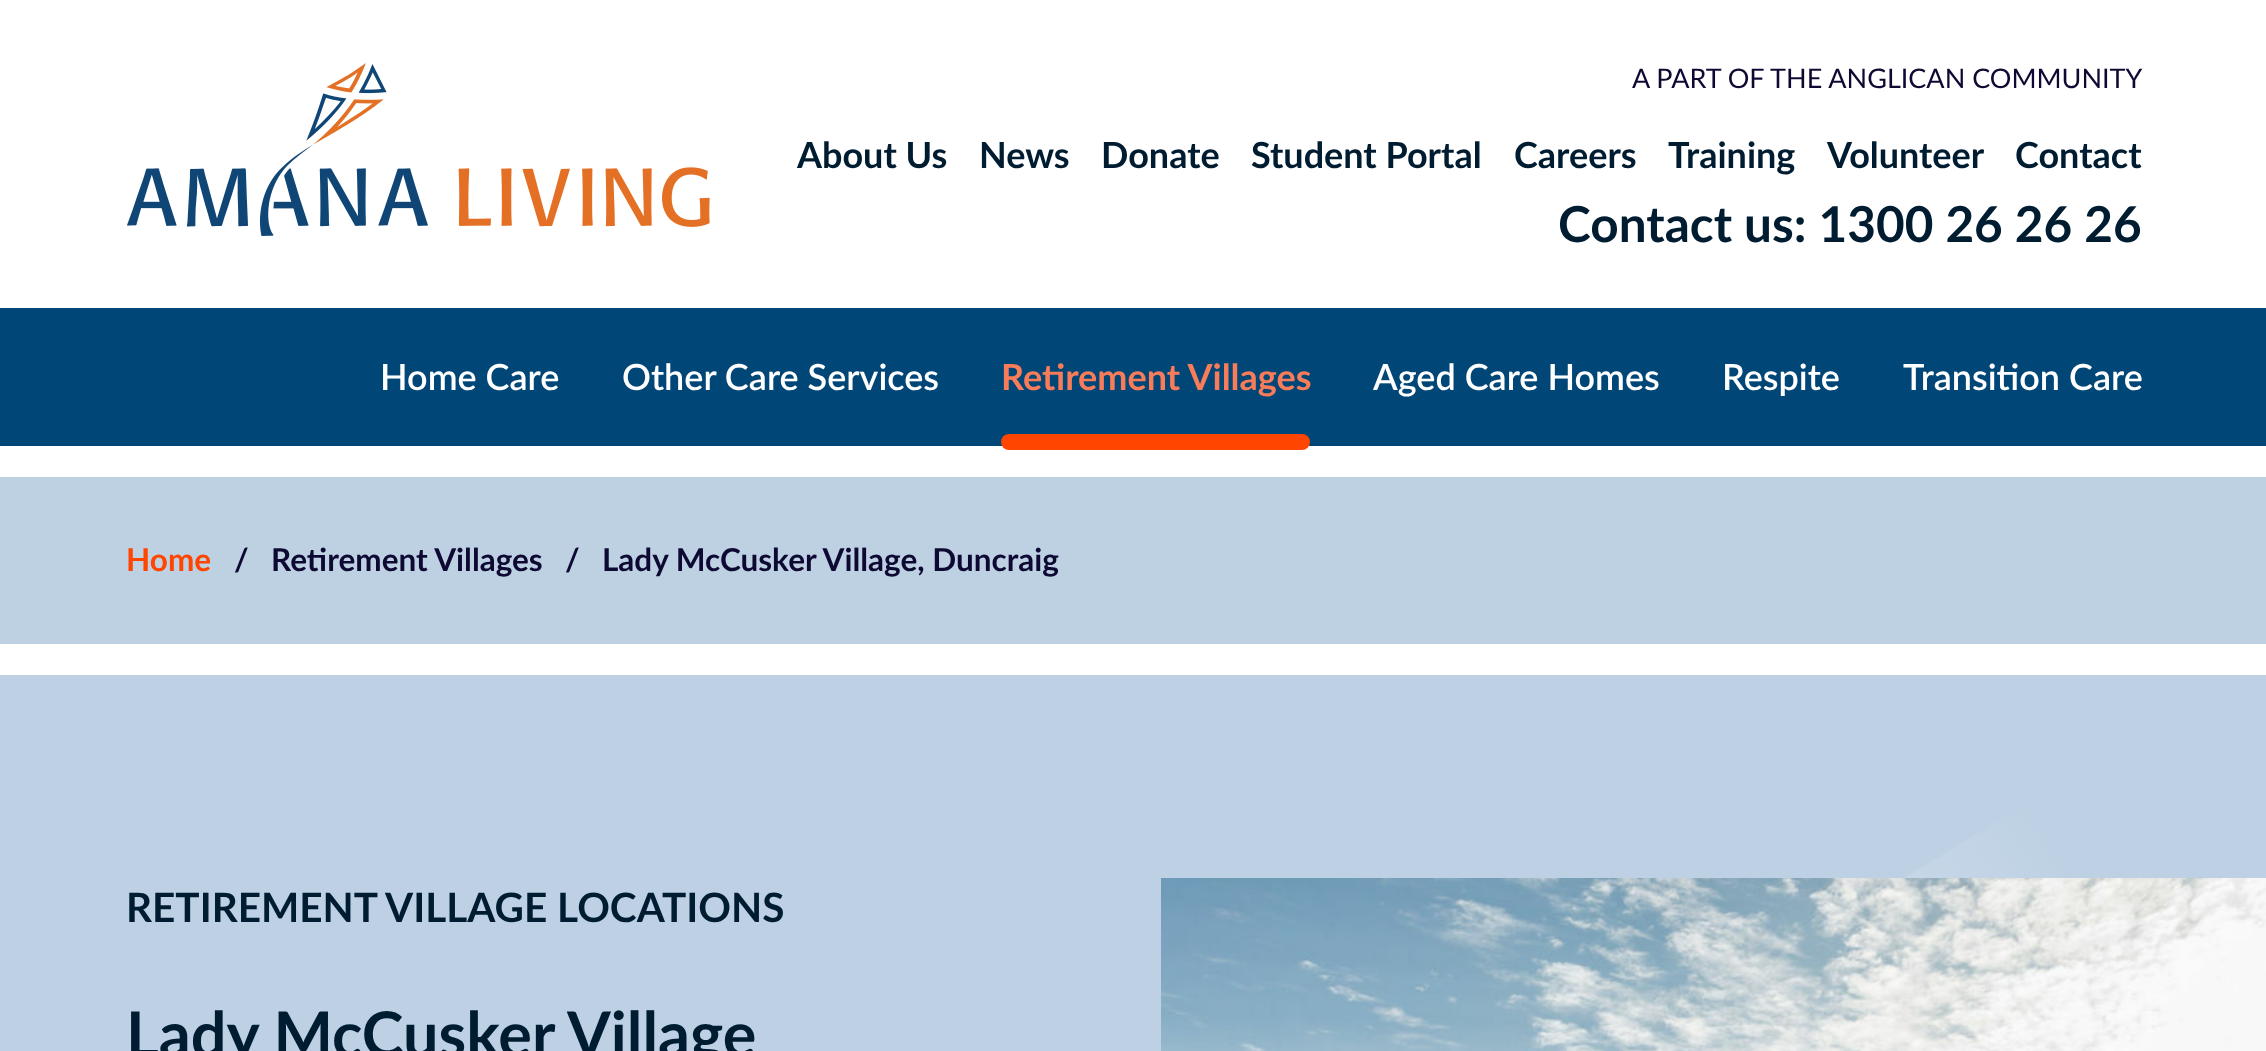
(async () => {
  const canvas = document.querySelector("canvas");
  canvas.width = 2266;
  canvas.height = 1051;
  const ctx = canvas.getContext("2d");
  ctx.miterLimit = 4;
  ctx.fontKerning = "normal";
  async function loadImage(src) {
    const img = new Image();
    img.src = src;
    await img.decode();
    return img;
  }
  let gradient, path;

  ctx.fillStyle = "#ffffff";
  ctx.fillRect(0, 0, 2266, 1051);
  ctx.drawImage(await loadImage("img/1.png"), 127, 63, 583, 173);
  ctx.fillStyle = "#004676";
  ctx.fillRect(0, 308, 2266, 138);
  ctx.fillStyle = "#ff4500";
  ctx.beginPath();
  ctx.roundRect(1001, 434, 309, 16, 8);
  ctx.fill();
  ctx.fillStyle = "#bed1e3";
  ctx.fillRect(0, 477, 2266, 167);
  gradient = ctx.createRadialGradient(1134, 1436, 0, 1134, 1436, 1365);
  gradient.addColorStop(0, "#f9fbfd");
  gradient.addColorStop(0.8, "#bed1e4");
  ctx.fillStyle = gradient;
  ctx.fillRect(1904, 675, 362, 203);
  ctx.fillStyle = "#bed1e4";
  path = new Path2D("M0 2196V675H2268C2133 733 1774 949 1331 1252C909 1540 820 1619 541 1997C403 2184 270 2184 197 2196Z");
  ctx.fill(path);
  ctx.drawImage(await loadImage("img/2.png"), 1161, 878, 1105, 173);
  ctx.font = "27px Lato";
  ctx.fillStyle = "#0d0933";
  ctx.fillText("A PART OF THE ANGLICAN COMMUNITY", 1632, 88);
  ctx.font = "bold 36px Lato";
  ctx.fillStyle = "#001c31";
  for (const [text, x, y] of [
    ["About Us", 797, 168],
    ["News", 979, 168],
    ["Donate", 1101, 168],
    ["Student Portal", 1251, 168],
    ["Careers", 1514, 168],
    ["Training", 1668, 168],
    ["Volunteer", 1827, 168],
    ["Contact", 2015, 168],
  ]) {
    ctx.fillText(text, x, y);
  }
  ctx.font = "bold 49.5px Lato";
  ctx.fillText("Contact us: 1300 26 26 26", 1558, 242);
  ctx.font = "600 36px Lato";
  ctx.fillStyle = "#ffffff";
  ctx.fillText("Home Care", 380, 390);
  ctx.fillText("Other Care Services", 622, 390);
  ctx.font = "bold 36px Lato";
  ctx.fillStyle = "#f87c59";
  ctx.fillText("Retirement Villages", 1001, 390);
  ctx.font = "600 36px Lato";
  ctx.fillStyle = "#ffffff";
  for (const [text, x, y] of [
    ["Aged Care Homes", 1373, 390],
    ["Respite", 1722, 390],
    ["Transition Care", 1903, 390],
  ]) {
    ctx.fillText(text, x, y);
  }
  ctx.font = "bold 31.5px Lato";
  ctx.fillStyle = "#ff4500";
  ctx.fillText("Home", 126, 571);
  ctx.fillStyle = "#0d0933";
  for (const [text, x, y] of [
    ["/", 234, 571],
    ["Retirement Villages", 271, 571],
    ["/", 565, 571],
    ["Lady McCusker Village, Duncraig", 602, 571],
  ]) {
    ctx.fillText(text, x, y);
  }
  ctx.font = "bold 40.5px Lato";
  ctx.fillStyle = "#001c31";
  ctx.fillText("RETIREMENT VILLAGE LOCATIONS", 126, 922);
  ctx.font = "bold 63px Lato";
  ctx.fillText("Lady McCusker Village", 126, 1057);
})();
